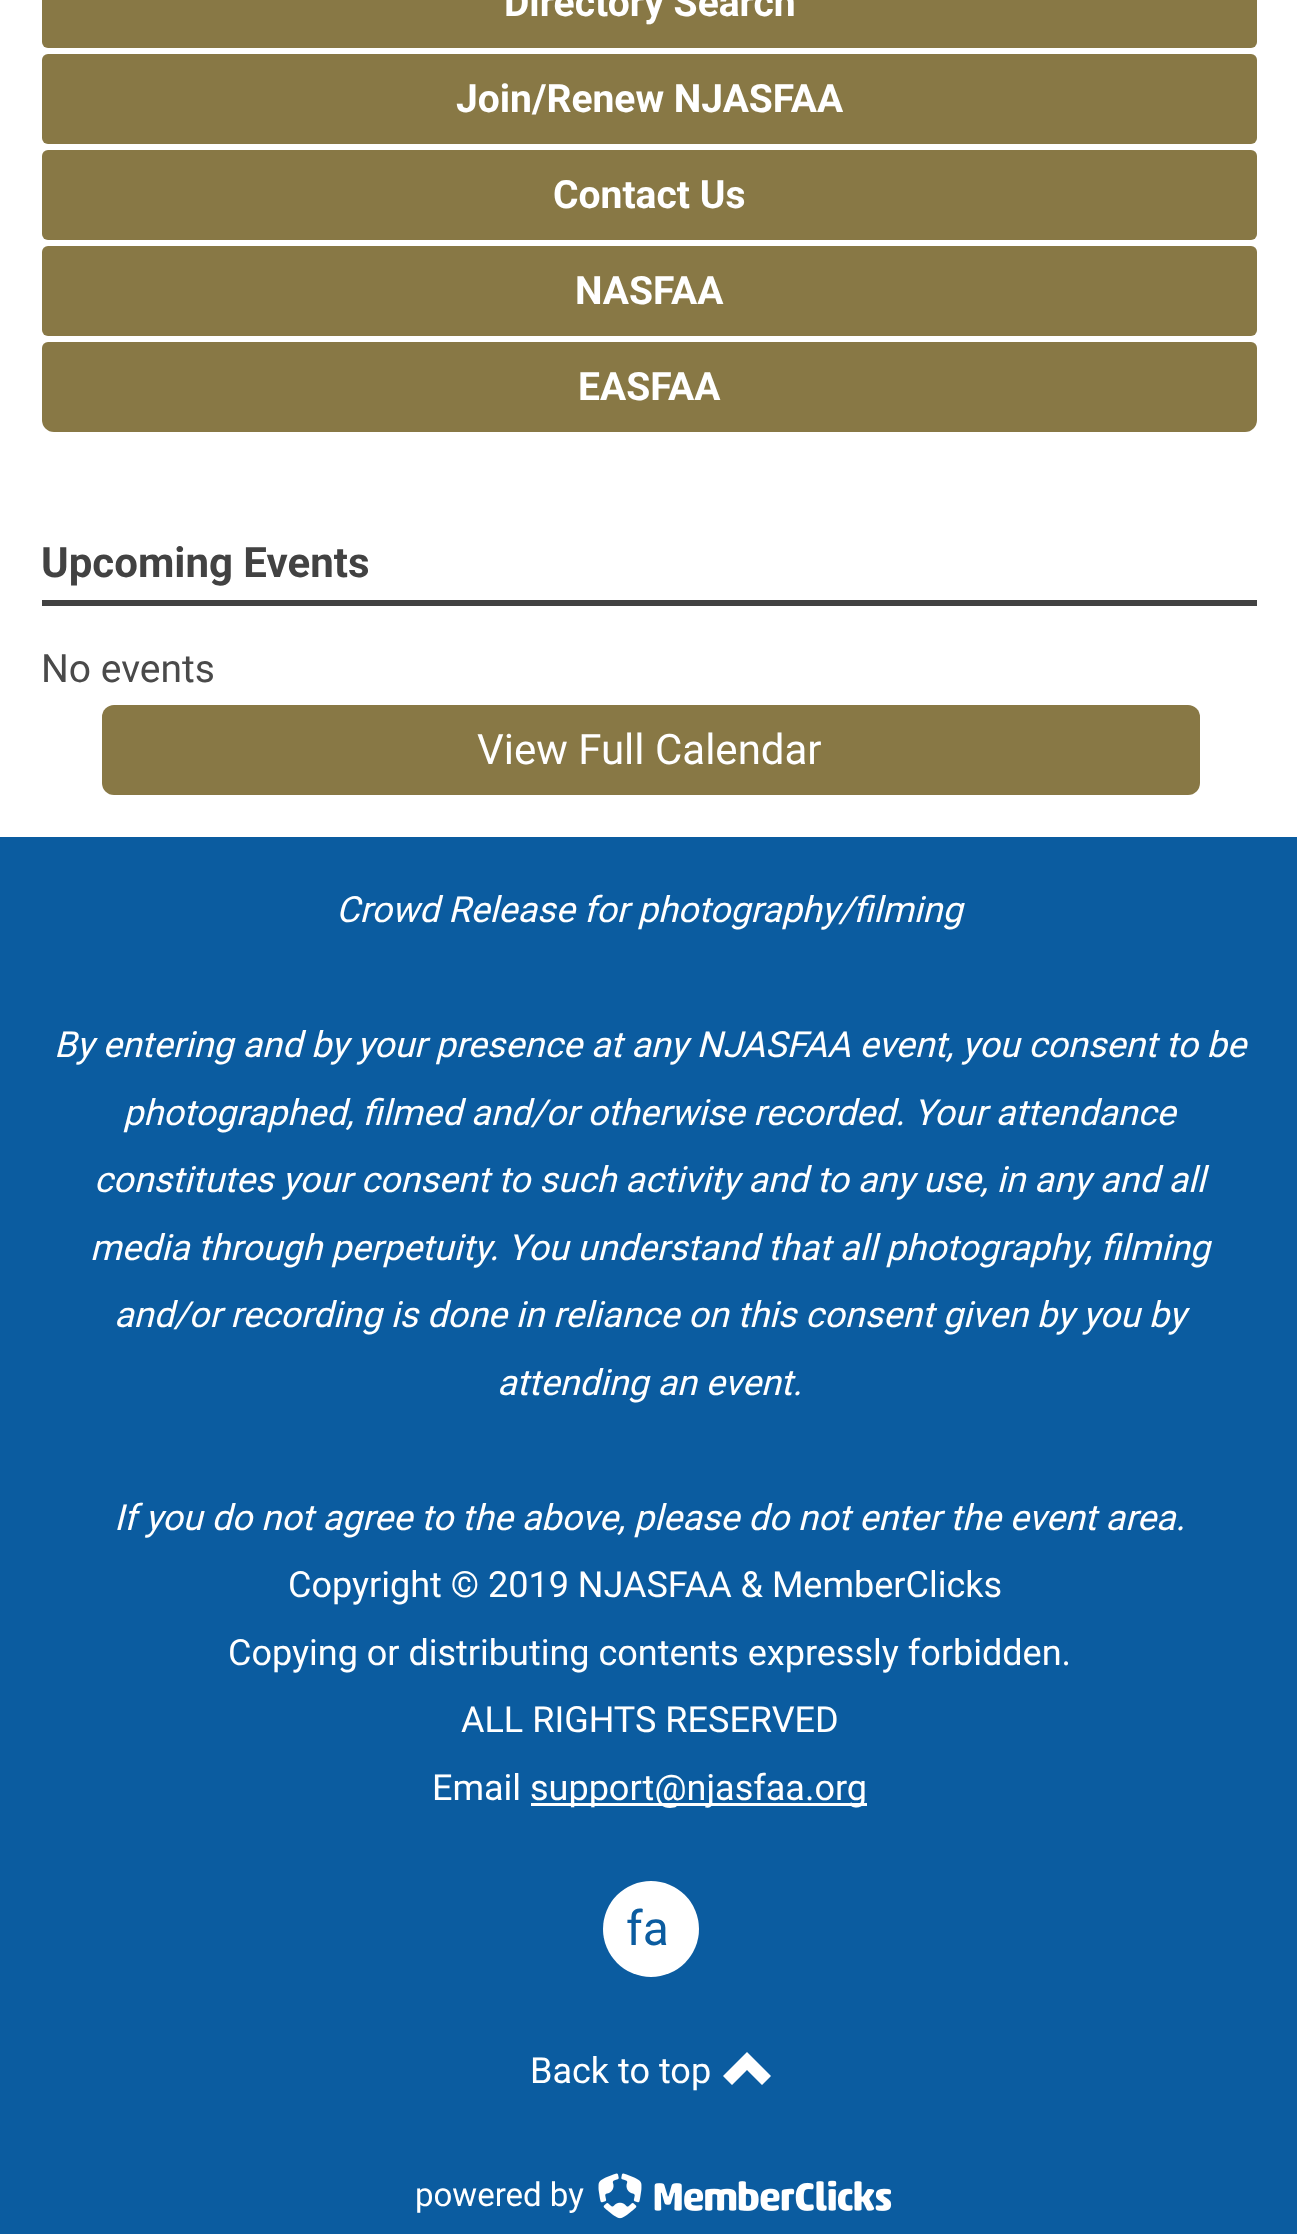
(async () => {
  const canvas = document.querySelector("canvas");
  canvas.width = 1297;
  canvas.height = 2234;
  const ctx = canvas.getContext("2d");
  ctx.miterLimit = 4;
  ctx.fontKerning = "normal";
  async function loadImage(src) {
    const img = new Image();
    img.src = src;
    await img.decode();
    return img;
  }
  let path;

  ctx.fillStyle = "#ffffff";
  ctx.fillRect(0, 0, 1297, 2234);
  ctx.fillStyle = "#887845";
  ctx.beginPath();
  ctx.roundRect(42, -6, 1215, 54, 6);
  ctx.fill();
  ctx.beginPath();
  ctx.roundRect(42, 54, 1215, 90, 6);
  ctx.fill();
  ctx.beginPath();
  ctx.roundRect(42, 150, 1215, 90, 6);
  ctx.fill();
  ctx.beginPath();
  ctx.roundRect(42, 246, 1215, 90, 6);
  ctx.fill();
  ctx.beginPath();
  ctx.roundRect(42, 342, 1215, 90, [6, 6, 12, 12]);
  ctx.fill();
  ctx.fillStyle = "#424242";
  ctx.fillRect(42, 600, 1215, 6);
  ctx.fillStyle = "#887845";
  ctx.beginPath();
  ctx.roundRect(102, 705, 1098, 90, 12);
  ctx.fill();
  ctx.fillStyle = "#0b5ca0";
  ctx.fillRect(0, 837, 1297, 1397);
  ctx.fillStyle = "#ffffff";
  ctx.fillRect(531, 1803, 336, 3);
  ctx.beginPath();
  ctx.arc(651, 1929, 48, 0, Math.PI * 2);
  ctx.fill();
  path = new Path2D("M723 2076L732 2085L747 2070L762 2085L771 2076L747 2052Z");
  ctx.fill(path);
  ctx.drawImage(await loadImage("img/1.png"), 598, 2173, 44, 46);
  ctx.drawImage(await loadImage("img/2.png"), 654, 2180, 238, 31);
  ctx.font = "bold 39px Roboto";
  for (const [text, x, y] of [
    ["Directory Search", 504, 16],
    ["Join/Renew NJASFAA", 456, 112],
    ["Contact Us", 553, 208],
    ["NASFAA", 575, 304],
    ["EASFAA", 578, 400],
  ]) {
    ctx.fillText(text, x, y);
  }
  ctx.font = "bold 42px Roboto";
  ctx.fillStyle = "#424242";
  ctx.fillText("Upcoming Events", 41, 577);
  ctx.font = "39px Roboto";
  ctx.fillStyle = "#4a4a4a";
  ctx.fillText("No events", 41, 682);
  ctx.font = "42px Roboto";
  ctx.fillStyle = "#ffffff";
  ctx.fillText("View Full Calendar", 477, 764);
  ctx.font = "italic 36px Roboto";
  for (const [text, x, y] of [
    ["Crowd Release for photography/filming", 336, 922],
    ["By entering and by your presence at any NJASFAA event, you consent to be", 54, 1057],
    ["photographed, filmed and/or otherwise recorded. Your attendance", 123, 1125],
    ["constitutes your consent to such activity and to any use, in any and all", 94, 1192],
    ["media through perpetuity. You understand that all photography, filming", 90, 1260],
    ["and/or recording is done in reliance on this consent given by you by", 114, 1327],
    ["attending an event.", 497, 1395],
    ["If you do not agree to the above, please do not enter the event area.", 114, 1530],
  ]) {
    ctx.fillText(text, x, y);
  }
  ctx.font = "36px Roboto";
  for (const [text, x, y] of [
    ["Copyright © 2019 NJASFAA & MemberClicks", 288, 1597],
    ["Copying or distributing contents expressly forbidden.", 228, 1665],
    ["ALL RIGHTS RESERVED", 461, 1732],
    ["Email", 432, 1800],
    ["support@njasfaa.org", 530, 1800],
  ]) {
    ctx.fillText(text, x, y);
  }
  ctx.save();
  ctx.beginPath();
  ctx.rect(627, 1905, 48, 48);
  ctx.clip();
  ctx.font = "48px Roboto";
  ctx.fillStyle = "#0b5ca0";
  ctx.fillText("fa", 626, 1945);
  ctx.restore();
  ctx.fillText("Back to top", 530, 2083);
  ctx.font = "33px Roboto";
  ctx.fillText("powered by", 415, 2206);
})();
